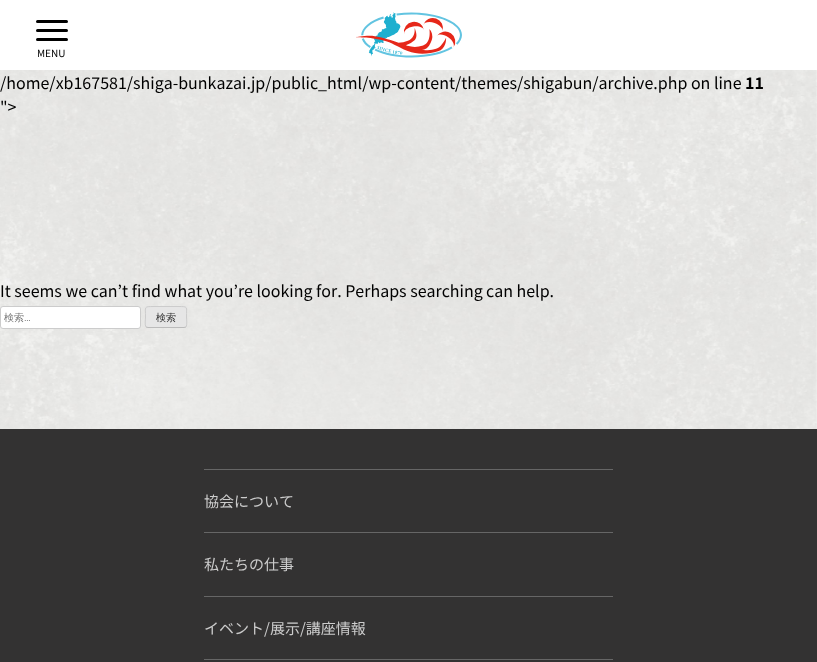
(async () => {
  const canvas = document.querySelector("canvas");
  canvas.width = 817;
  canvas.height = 662;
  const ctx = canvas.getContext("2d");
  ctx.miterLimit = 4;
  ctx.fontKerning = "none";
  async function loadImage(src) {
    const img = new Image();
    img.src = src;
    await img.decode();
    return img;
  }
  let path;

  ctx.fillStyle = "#ffffff";
  ctx.fillRect(0, 0, 817, 662);
  ctx.fillStyle = "#000000";
  ctx.beginPath();
  ctx.roundRect(36, 29, 32, 3, 1.5);
  ctx.fill();
  ctx.beginPath();
  ctx.roundRect(36, 20, 32, 3, 1.5);
  ctx.fill();
  ctx.beginPath();
  ctx.roundRect(36, 38, 32, 3, 1.5);
  ctx.fill();
  ctx.drawImage(await loadImage("img/1.png"), 356, 12, 106, 46);
  ctx.drawImage(await loadImage("img/2.png"), 0, 70, 817, 359);
  ctx.fillStyle = "#ffffff";
  ctx.beginPath();
  ctx.roundRect(0.5, 306.5, 140, 22, 2.5);
  ctx.fill();
  ctx.strokeStyle = "#cccccc";
  ctx.stroke();
  ctx.fillStyle = "#e6e6e6";
  ctx.beginPath();
  ctx.roundRect(145, 306, 42, 22, 3);
  ctx.fill();
  path = new Path2D("M186 327L184 327.5H148L146 327");
  ctx.strokeStyle = "#bbbbbb";
  ctx.stroke(path);
  path = new Path2D("M146 327C144.5 325 145.5 319 145.5 317C145.5 306.5 143.5 306.5 154 306.5H178C188.5 306.5 186.5 306.5 186.5 317C186.5 319 187.5 325 186 327");
  ctx.strokeStyle = "#cccccc";
  ctx.stroke(path);
  for (const [x, y, w, h, color] of [
    [0, 429, 817, 233, "#333232"],
    [204, 469, 409, 1, "#666666"],
    [204, 532, 409, 1, "#666666"],
    [204, 596, 409, 1, "#666666"],
    [204, 659, 409, 1, "#666666"],
  ]) {
    ctx.fillStyle = color;
    ctx.fillRect(x, y, w, h);
  }
  ctx.font = "10px Noto Sans JP";
  ctx.fillStyle = "#000000";
  ctx.fillText("MENU", 37, 57);
  ctx.font = "16px Noto Sans JP";
  ctx.fillText("/home/xb167581/shiga-bunkazai.jp/public_html/wp-content/themes/shigabun/archive.php on line", 0, 89);
  ctx.font = "bold 16px Noto Sans JP";
  ctx.fillText("11", 745, 89);
  ctx.font = "16px Noto Sans JP";
  ctx.fillText("\">", 0, 113);
  ctx.fillText("It seems we can’t find what you’re looking for. Perhaps searching", 0, 297);
  ctx.fillText("can help.", 486, 297);
  ctx.font = "500 10px WenQuanYi Zen Hei";
  ctx.fillStyle = "#757575";
  ctx.fillText("検索", 4, 321);
  ctx.font = "10px Roboto";
  ctx.fillText("…", 24, 321);
  ctx.font = "500 10px WenQuanYi Zen Hei";
  ctx.fillStyle = "#2e2e2e";
  ctx.fillText("検索", 156, 321);
  ctx.font = "15px Noto Sans JP";
  ctx.fillStyle = "#cccccc";
  for (const [text, x, y] of [
    ["協会について", 204, 507],
    ["私たちの仕事", 204, 570],
    ["イベント/展示/講座情報", 204, 634],
  ]) {
    ctx.fillText(text, x, y);
  }
})();
